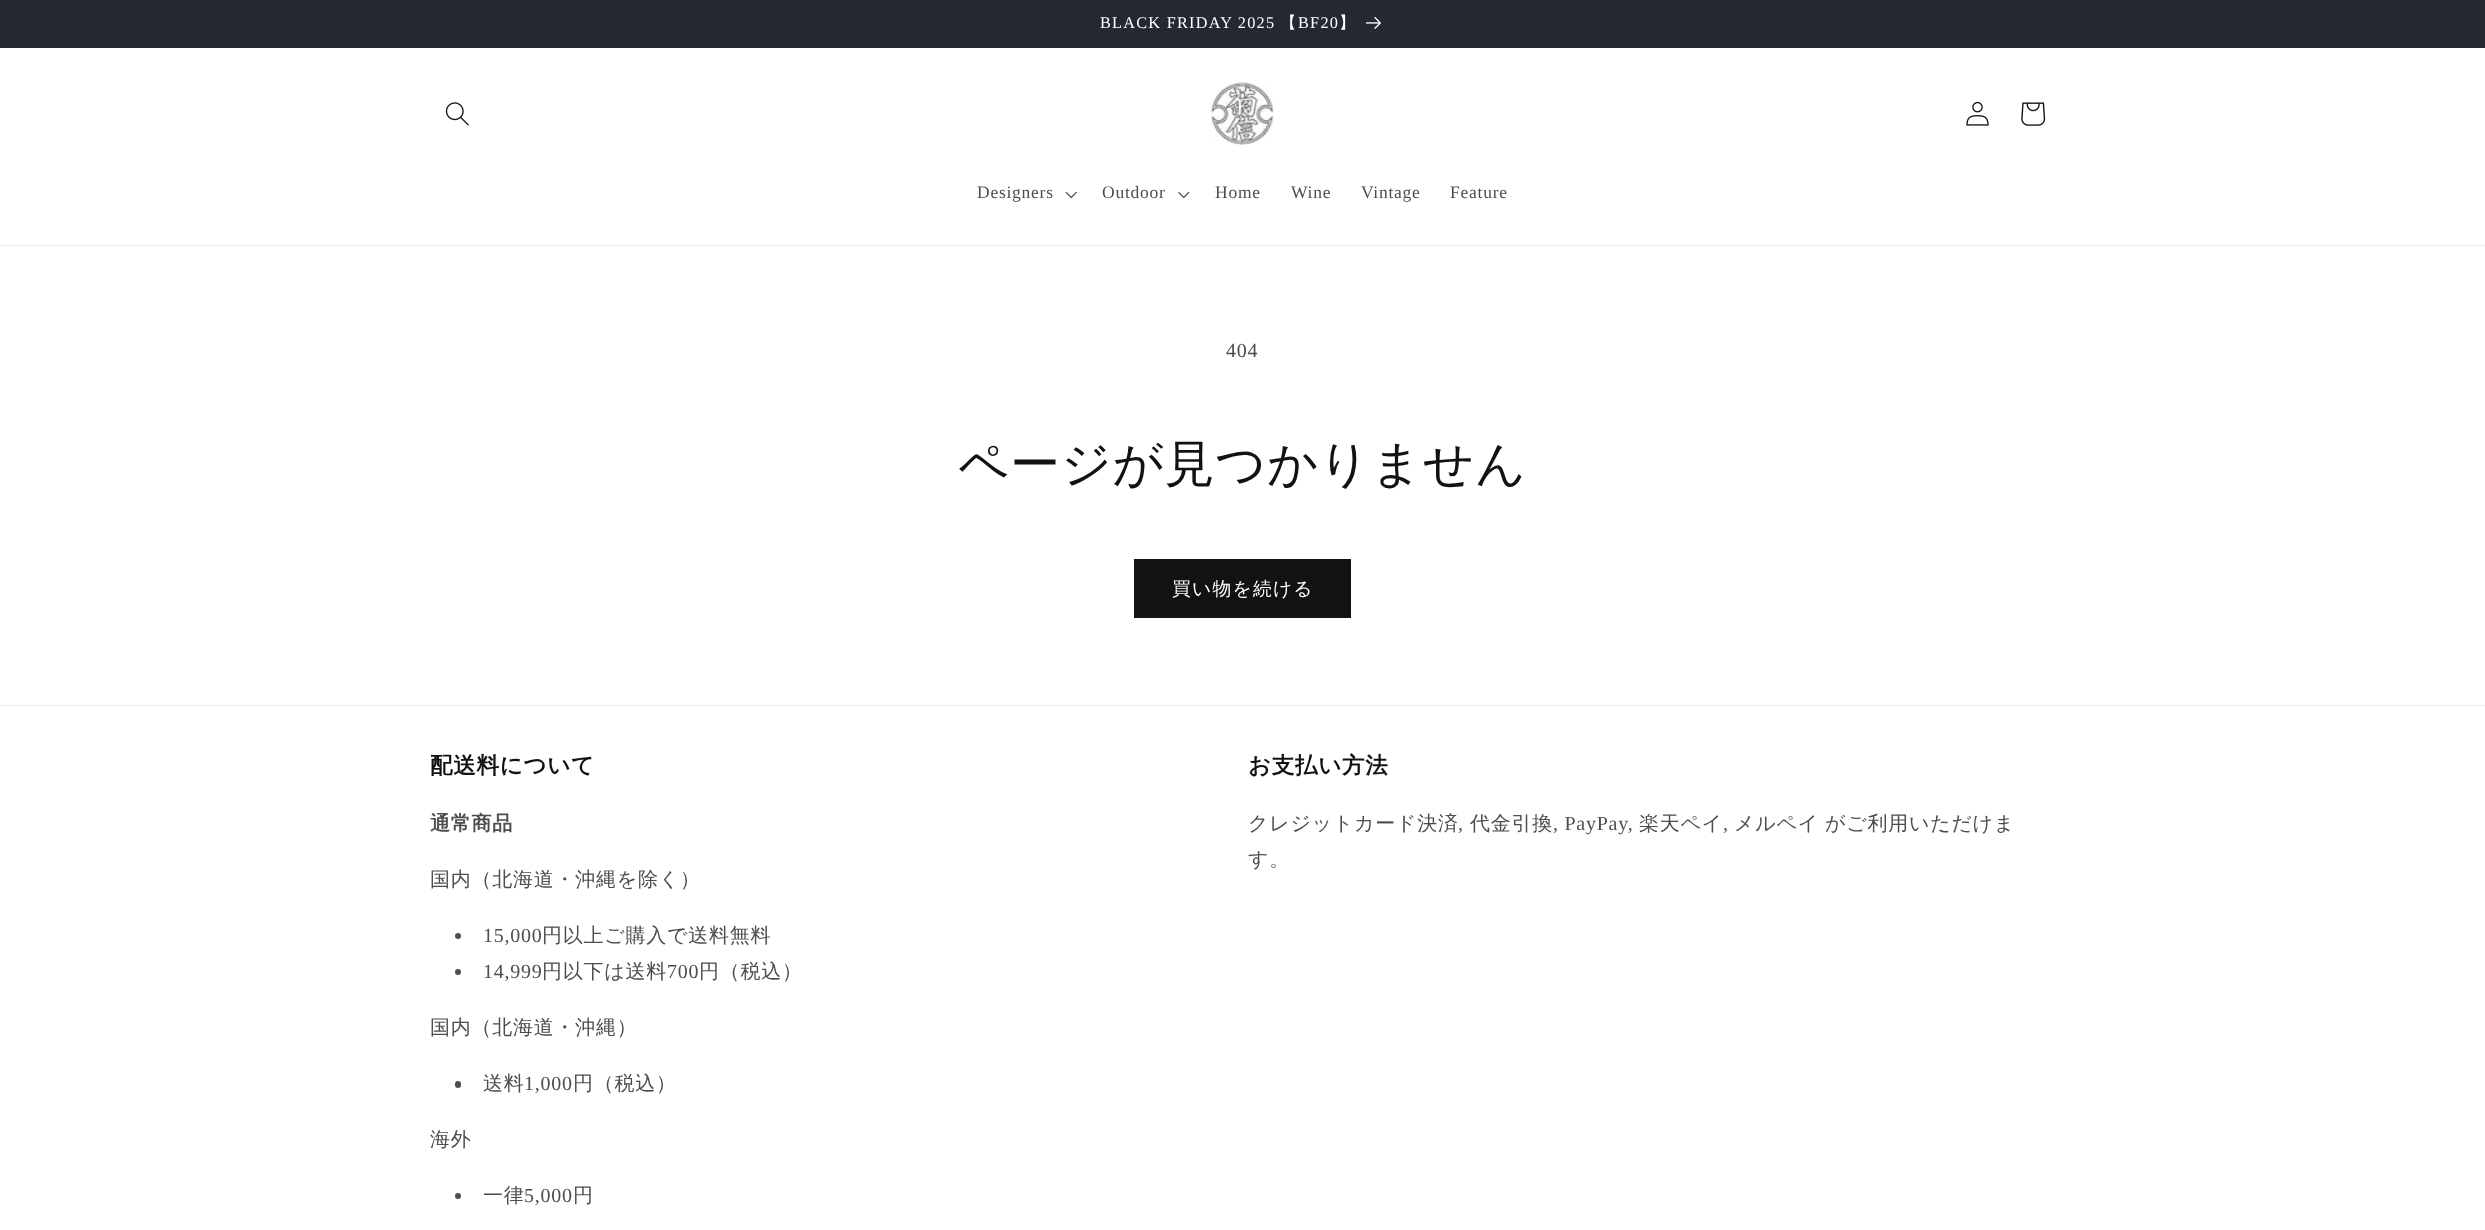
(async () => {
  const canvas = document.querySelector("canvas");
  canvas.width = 2485;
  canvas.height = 1230;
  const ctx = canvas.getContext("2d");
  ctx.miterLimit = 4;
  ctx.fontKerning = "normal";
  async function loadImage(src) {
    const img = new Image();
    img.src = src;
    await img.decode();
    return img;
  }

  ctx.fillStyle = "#ffffff";
  ctx.fillRect(0, 0, 2485, 1230);
  ctx.fillStyle = "#242833";
  ctx.fillRect(0, 0, 2485, 48);
  ctx.drawImage(await loadImage("img/1.png"), 1366, 17, 15, 12);
  ctx.fillStyle = "#ececec";
  ctx.fillRect(0, 245, 2485, 1);
  ctx.drawImage(await loadImage("img/2.png"), 445, 102, 24, 24);
  ctx.drawImage(await loadImage("img/3.png"), 1211, 82, 63, 63);
  ctx.drawImage(await loadImage("img/4.png"), 1966, 101, 23, 25);
  ctx.drawImage(await loadImage("img/5.png"), 2021, 102, 25, 24);
  ctx.drawImage(await loadImage("img/6.png"), 1065, 191, 12, 8);
  ctx.drawImage(await loadImage("img/7.png"), 1178, 191, 12, 8);
  ctx.fillStyle = "#121212";
  ctx.fillRect(1134, 559, 217, 59);
  ctx.fillStyle = "#ececec";
  ctx.fillRect(0, 705, 2485, 1);
  ctx.fillStyle = "#4d4d4d";
  ctx.beginPath();
  ctx.arc(458, 936, 3, 0, Math.PI * 2);
  ctx.fill();
  ctx.beginPath();
  ctx.arc(458, 972, 3, 0, Math.PI * 2);
  ctx.fill();
  ctx.beginPath();
  ctx.roundRect(455, 1081, 6, 7, 3);
  ctx.fill();
  ctx.beginPath();
  ctx.arc(458, 1196, 3, 0, Math.PI * 2);
  ctx.fill();
  ctx.letterSpacing = "1.25px";
  ctx.font = "16.25px Liberation Serif";
  ctx.fillStyle = "#ffffff";
  ctx.fillText("BLACK FRIDAY 2025", 1100, 28);
  ctx.font = "500 16.25px WenQuanYi Zen Hei";
  ctx.fillText("【", 1280, 28);
  ctx.font = "16.25px Liberation Serif";
  ctx.fillText("BF20", 1298, 28);
  ctx.font = "500 16.25px WenQuanYi Zen Hei";
  ctx.fillText("】", 1339, 28);
  ctx.letterSpacing = "0.75px";
  ctx.font = "17.5px Liberation Serif";
  ctx.fillStyle = "#4d4d4d";
  for (const [text, x, y] of [
    ["Designers", 977, 198],
    ["Outdoor", 1102, 198],
    ["Home", 1215, 198],
    ["Wine", 1291, 198],
    ["Vintage", 1361, 198],
    ["Feature", 1450, 198],
  ]) {
    ctx.fillText(text, x, y);
  }
  ctx.font = "20px Liberation Serif";
  ctx.fillText("404", 1226, 357);
  ctx.font = "500 50px WenQuanYi Zen Hei";
  ctx.fillStyle = "#121212";
  ctx.fillText("ページが見つかりません", 958, 481);
  ctx.letterSpacing = "1.25px";
  ctx.font = "500 18.75px WenQuanYi Zen Hei";
  ctx.fillStyle = "#ffffff";
  ctx.fillText("買い物を続ける", 1172, 595);
  ctx.letterSpacing = "0.75px";
  ctx.font = "bold 22.5px WenQuanYi Zen Hei";
  ctx.fillStyle = "#121212";
  ctx.fillText("配送料について", 430, 773);
  ctx.font = "bold 20px WenQuanYi Zen Hei";
  ctx.fillStyle = "#4d4d4d";
  ctx.fillText("通常商品", 430, 830);
  ctx.font = "500 20px WenQuanYi Zen Hei";
  ctx.fillText("国内（北海道・沖縄を除く）", 430, 886);
  ctx.font = "20px Liberation Serif";
  ctx.fillText("15,000", 483, 942);
  ctx.font = "500 20px WenQuanYi Zen Hei";
  ctx.fillText("円以上ご購入で送料無料", 542, 942);
  ctx.font = "20px Liberation Serif";
  ctx.fillText("14,999", 483, 978);
  ctx.font = "500 20px WenQuanYi Zen Hei";
  ctx.fillText("円以下は送料", 542, 978);
  ctx.font = "20px Liberation Serif";
  ctx.fillText("700", 667, 978);
  ctx.font = "500 20px WenQuanYi Zen Hei";
  for (const [text, x, y] of [
    ["円（税込）", 699, 978],
    ["国内（北海道・沖縄）", 430, 1034],
    ["送料", 483, 1090],
  ]) {
    ctx.fillText(text, x, y);
  }
  ctx.font = "20px Liberation Serif";
  ctx.fillText("1,000", 524, 1090);
  ctx.font = "500 20px WenQuanYi Zen Hei";
  for (const [text, x, y] of [
    ["円（税込）", 573, 1090],
    ["海外", 430, 1146],
    ["一律", 483, 1202],
  ]) {
    ctx.fillText(text, x, y);
  }
  ctx.font = "20px Liberation Serif";
  ctx.fillText("5,000", 524, 1202);
  ctx.font = "500 20px WenQuanYi Zen Hei";
  ctx.fillText("円", 573, 1202);
  ctx.font = "bold 22.5px WenQuanYi Zen Hei";
  ctx.fillStyle = "#121212";
  ctx.fillText("お支払い方法", 1248, 773);
  ctx.font = "500 20px WenQuanYi Zen Hei";
  ctx.fillStyle = "#4d4d4d";
  ctx.fillText("クレジットカード決済", 1248, 830);
  ctx.font = "20px Liberation Serif";
  ctx.fillText(",", 1458, 830);
  ctx.font = "500 20px WenQuanYi Zen Hei";
  ctx.fillText("代金引換", 1470, 830);
  ctx.font = "20px Liberation Serif";
  ctx.fillText(", PayPay,", 1553, 830);
  ctx.font = "500 20px WenQuanYi Zen Hei";
  ctx.fillText("楽天ペイ", 1639, 830);
  ctx.font = "20px Liberation Serif";
  ctx.fillText(",", 1723, 830);
  ctx.font = "500 20px WenQuanYi Zen Hei";
  for (const [text, x, y] of [
    ["メルペイ", 1734, 830],
    ["がご利用いただけま", 1825, 830],
    ["す。", 1248, 866],
  ]) {
    ctx.fillText(text, x, y);
  }
})();
